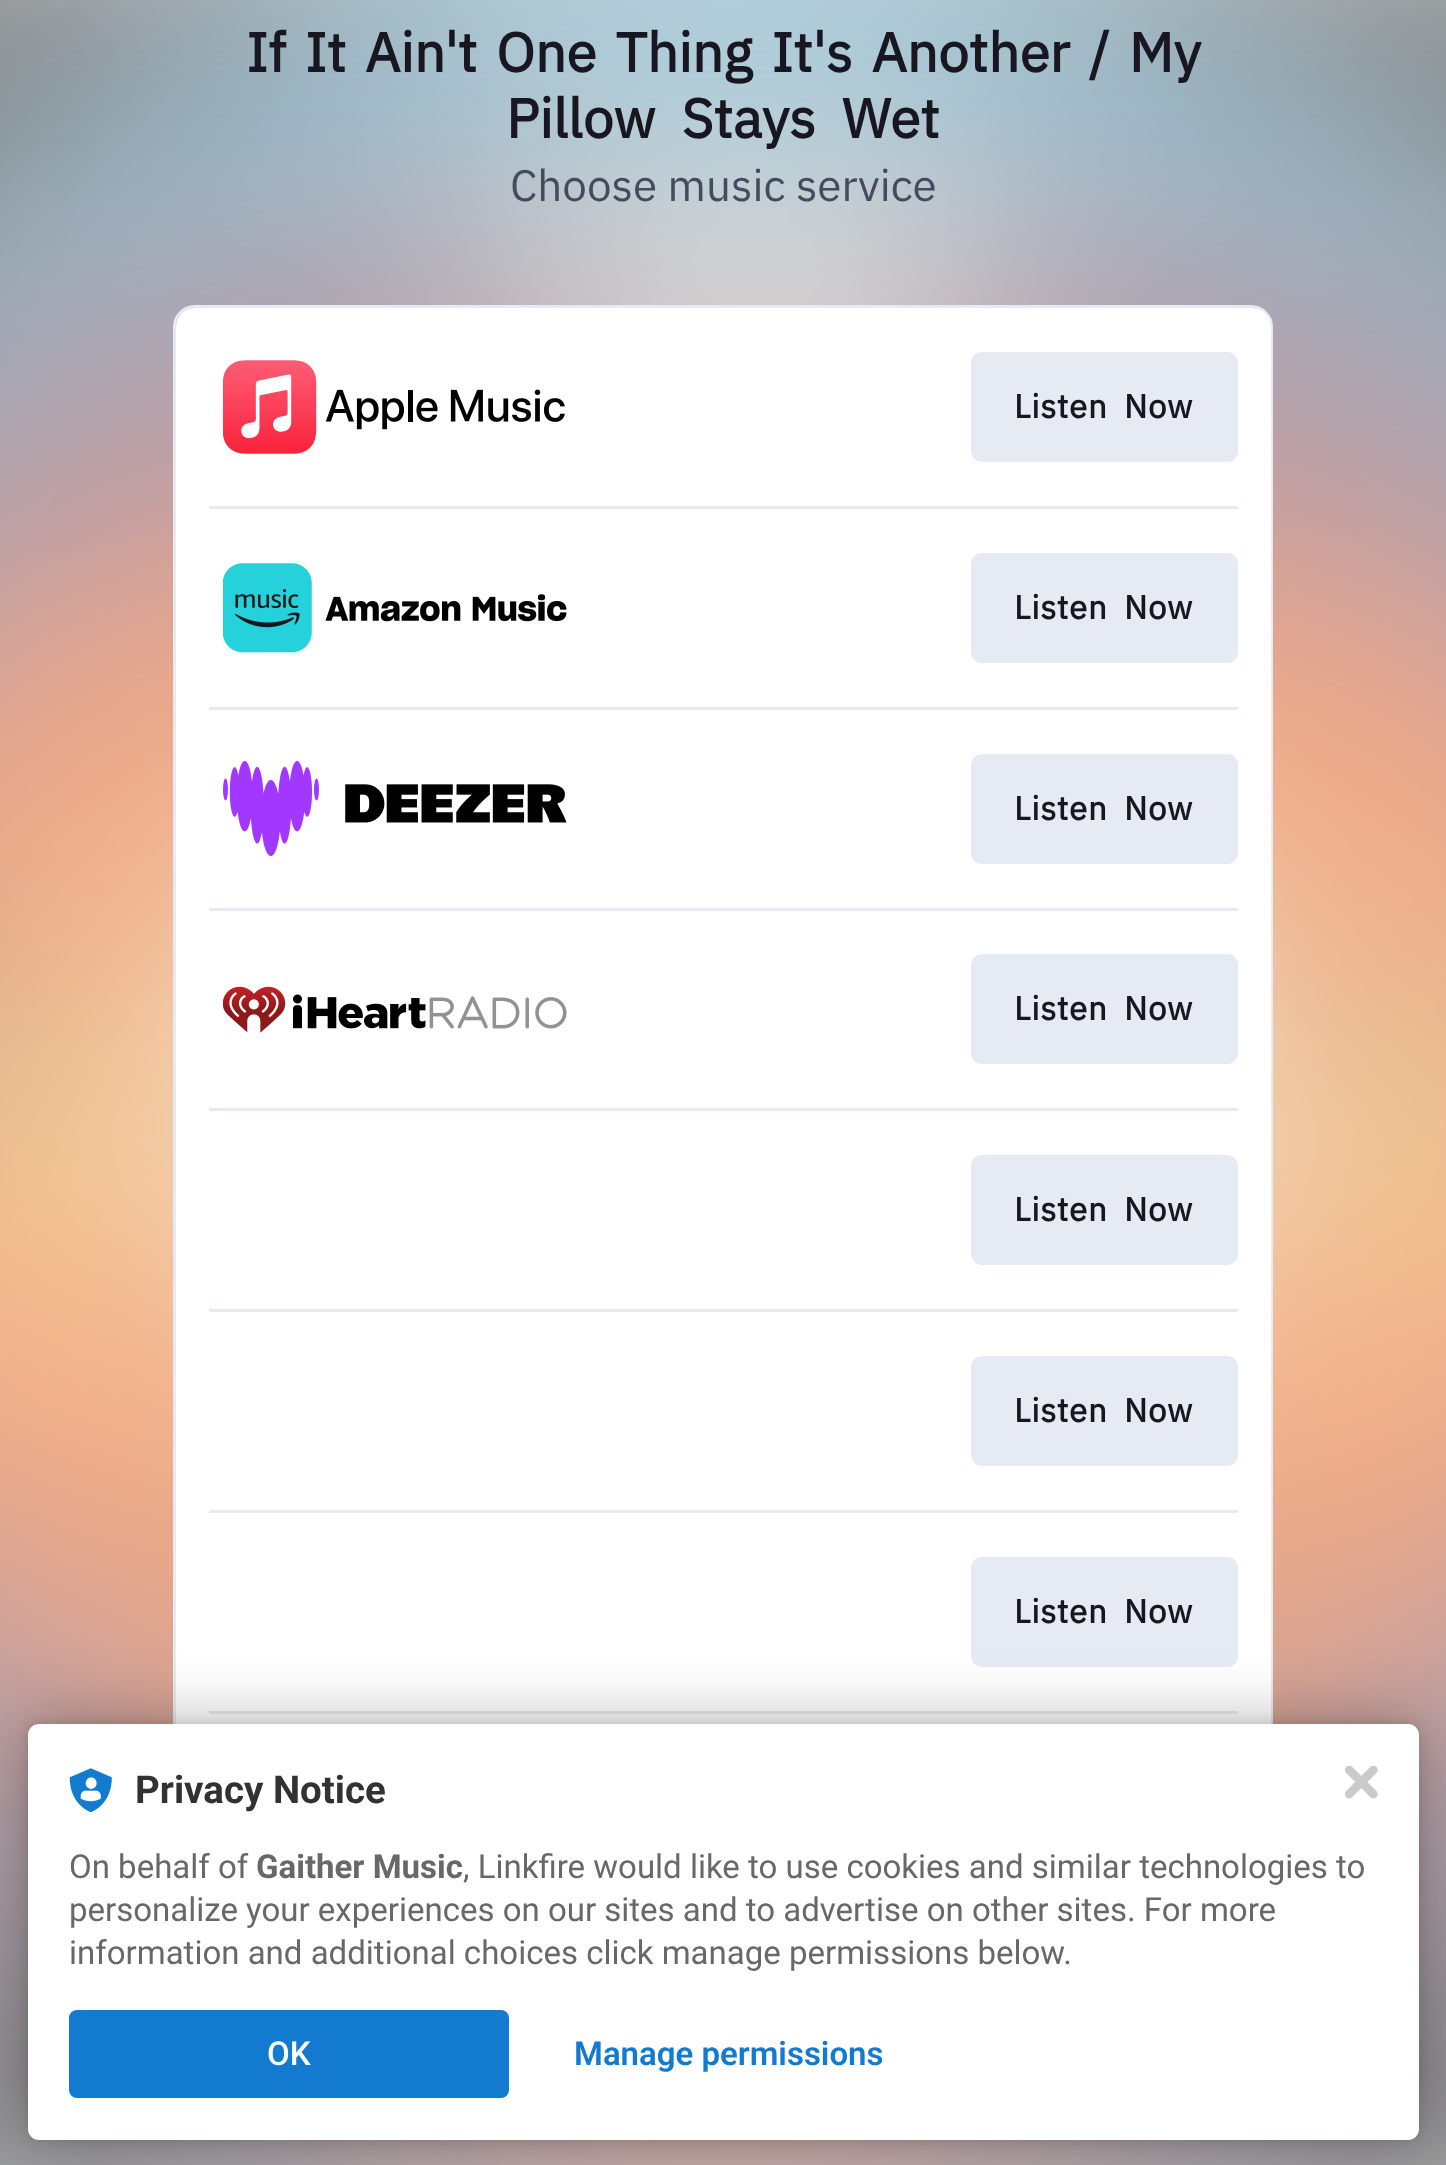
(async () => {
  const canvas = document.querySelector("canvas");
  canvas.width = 1446;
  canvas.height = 2165;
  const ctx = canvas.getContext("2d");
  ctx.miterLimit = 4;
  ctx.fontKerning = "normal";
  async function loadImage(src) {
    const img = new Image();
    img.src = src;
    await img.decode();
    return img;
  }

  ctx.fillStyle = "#ffffff";
  ctx.fillRect(0, 0, 1446, 2165);
  ctx.drawImage(await loadImage("img/1.png"), 0, 0, 1446, 2165);
  ctx.beginPath();
  ctx.roundRect(174.5, 306.5, 1097, 1606, 20.5);
  ctx.strokeStyle = "#e6eaf2";
  ctx.lineWidth = 3;
  ctx.stroke();
  ctx.beginPath();
  ctx.roundRect(176, 308, 1095, 1603, 19);
  ctx.fill();
  ctx.drawImage(await loadImage("img/2.png"), 223, 360, 342, 94);
  ctx.fillStyle = "#e6eaf2";
  ctx.beginPath();
  ctx.roundRect(971, 352, 267, 110, 11);
  ctx.fill();
  ctx.fillRect(209, 506, 1029, 3);
  ctx.drawImage(await loadImage("img/3.png"), 223, 563, 344, 90);
  ctx.beginPath();
  ctx.roundRect(971, 553, 267, 110, 11);
  ctx.fill();
  ctx.fillRect(209, 707, 1029, 3);
  ctx.drawImage(await loadImage("img/4.png"), 223, 761, 344, 95);
  ctx.beginPath();
  ctx.roundRect(971, 754, 267, 110, 11);
  ctx.fill();
  ctx.fillRect(209, 908, 1029, 3);
  ctx.drawImage(await loadImage("img/5.png"), 223, 986, 344, 47);
  ctx.beginPath();
  ctx.roundRect(971, 954, 267, 110, 11);
  ctx.fill();
  ctx.fillRect(209, 1108, 1029, 3);
  ctx.beginPath();
  ctx.roundRect(971, 1155, 267, 110, 11);
  ctx.fill();
  ctx.fillRect(209, 1309, 1029, 3);
  ctx.beginPath();
  ctx.roundRect(971, 1356, 267, 110, 11);
  ctx.fill();
  ctx.fillRect(209, 1510, 1029, 3);
  ctx.beginPath();
  ctx.roundRect(971, 1557, 267, 110, 11);
  ctx.fill();
  ctx.fillRect(209, 1711, 1029, 3);
  ctx.fillStyle = "rgba(0, 0, 0, 0.12)";
  ctx.filter = "blur(5.5px)";
  ctx.beginPath();
  ctx.roundRect(28, 1724, 1391, 416, 11);
  ctx.fill();
  ctx.filter = "none";
  ctx.fillStyle = "rgba(0, 0, 0, 0.3)";
  ctx.filter = "blur(33px)";
  ctx.beginPath();
  ctx.roundRect(28, 1724, 1391, 416, 11);
  ctx.fill();
  ctx.filter = "none";
  ctx.fillStyle = "#ffffff";
  ctx.beginPath();
  ctx.roundRect(28, 1724, 1391, 416, 11);
  ctx.fill();
  ctx.drawImage(await loadImage("img/6.png"), 1345, 1766, 33, 33);
  ctx.drawImage(await loadImage("img/7.png"), 69, 1768, 43, 44);
  ctx.fillStyle = "#137bcf";
  ctx.beginPath();
  ctx.roundRect(69, 2010, 440, 88, 8);
  ctx.fill();
  ctx.wordSpacing = "6px";
  ctx.font = "bold 55px IBM Plex Sans";
  ctx.fillStyle = "#181721";
  ctx.fillText("If It Ain't One Thing It's Another / My", 246, 72);
  ctx.wordSpacing = "13px";
  ctx.fillText("Pillow Stays Wet", 506, 138);
  ctx.wordSpacing = "0px";
  ctx.font = "44px IBM Plex Sans";
  ctx.fillStyle = "#454b5f";
  ctx.fillText("Choose music service", 510, 201);
  ctx.letterSpacing = "0.75px";
  ctx.wordSpacing = "8px";
  ctx.font = "bold 33px IBM Plex Sans";
  ctx.fillStyle = "#181721";
  for (const [text, x, y] of [
    ["Listen Now", 1014, 418],
    ["Listen Now", 1014, 619],
    ["Listen Now", 1014, 820],
    ["Listen Now", 1014, 1020],
    ["Listen Now", 1014, 1221],
    ["Listen Now", 1014, 1422],
    ["Listen Now", 1014, 1623],
  ]) {
    ctx.fillText(text, x, y);
  }
  ctx.letterSpacing = "0px";
  ctx.wordSpacing = "0px";
  ctx.font = "bold 38.5px Roboto";
  ctx.fillStyle = "#323232";
  ctx.fillText("Privacy Notice", 135, 1803);
  ctx.font = "33px Roboto";
  ctx.fillStyle = "#686868";
  ctx.fillText("On behalf of", 69, 1878);
  ctx.font = "bold 33px Roboto";
  ctx.fillText("Gaither Music", 256, 1878);
  ctx.font = "33px Roboto";
  for (const [text, x, y] of [
    [", Linkfire would like to use cookies and similar technologies to", 463, 1878],
    ["personalize your experiences on our sites and to advertise on other sites. For more", 69, 1921],
    ["information and additional choices click manage permissions below.", 69, 1964],
  ]) {
    ctx.fillText(text, x, y);
  }
  ctx.font = "500 33px Roboto";
  ctx.fillStyle = "#ffffff";
  ctx.fillText("OK", 267, 2065);
  ctx.font = "600 33px Roboto";
  ctx.fillStyle = "#137bcf";
  ctx.fillText("Manage permissions", 574, 2065);
})();
